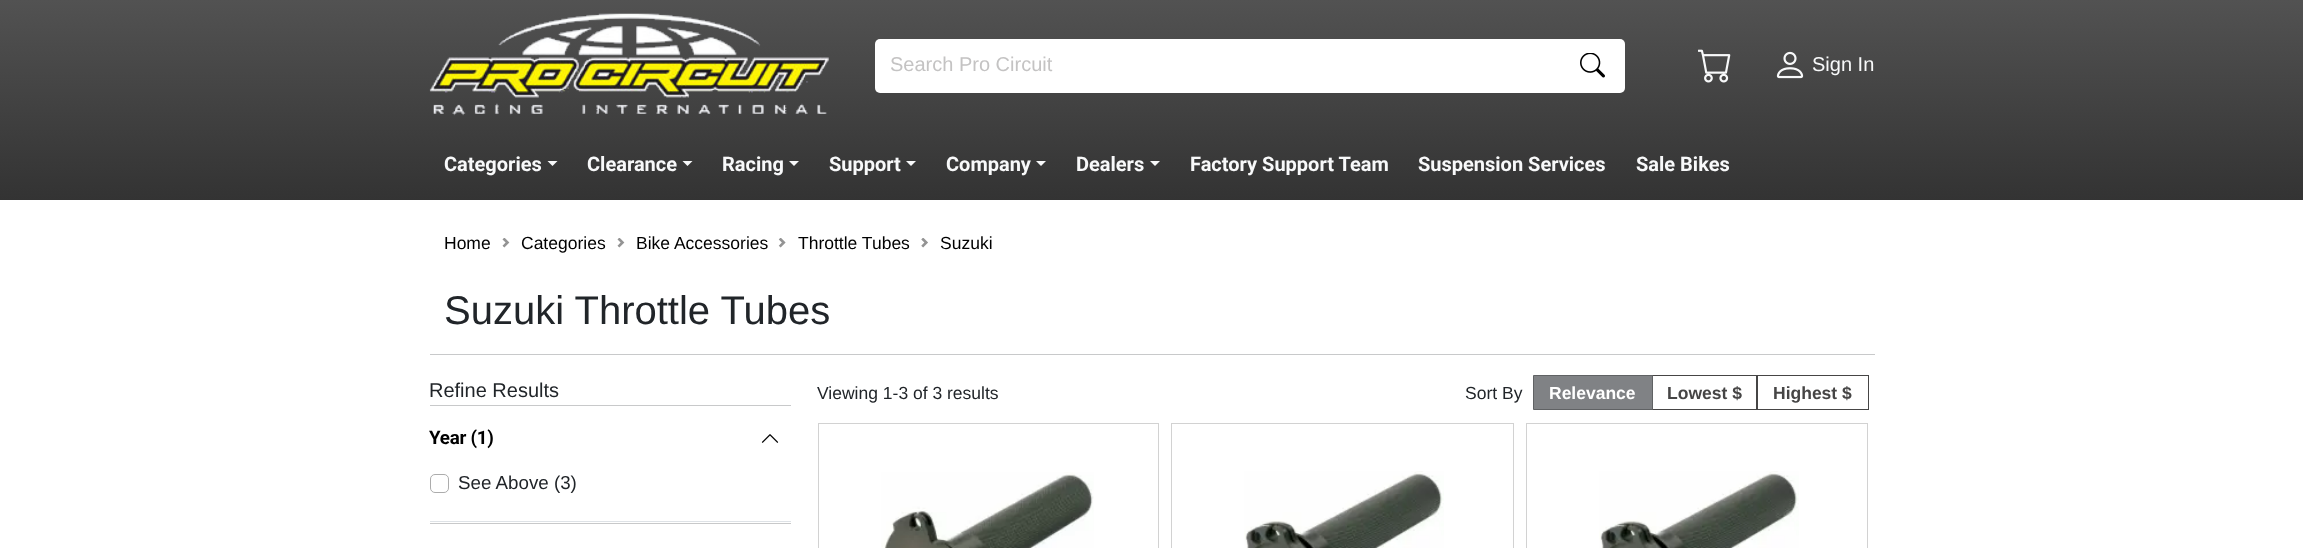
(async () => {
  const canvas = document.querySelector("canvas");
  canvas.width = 2303;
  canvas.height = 548;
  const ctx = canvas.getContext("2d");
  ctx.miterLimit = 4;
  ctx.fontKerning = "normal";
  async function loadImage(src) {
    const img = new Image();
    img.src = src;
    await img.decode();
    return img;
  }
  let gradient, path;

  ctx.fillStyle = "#ffffff";
  ctx.fillRect(0, 0, 2303, 548);
  gradient = ctx.createLinearGradient(1152, 0, 1152, 200);
  gradient.addColorStop(0, "#525252");
  gradient.addColorStop(1, "#333333");
  ctx.fillStyle = gradient;
  ctx.fillRect(0, 0, 2303, 200);
  ctx.drawImage(await loadImage("img/1.png"), 429, 13, 400, 103);
  ctx.fillStyle = "#ffffff";
  ctx.beginPath();
  ctx.roundRect(875, 39, 686, 54, [5, 0, 0, 5]);
  ctx.fill();
  ctx.beginPath();
  ctx.roundRect(1560, 39, 65, 54, [0, 5, 5, 0]);
  ctx.fill();
  ctx.drawImage(await loadImage("img/2.png"), 1580, 53, 25, 25);
  ctx.drawImage(await loadImage("img/3.png"), 1698, 49, 33, 34);
  ctx.drawImage(await loadImage("img/4.png"), 1776, 51, 28, 28);
  ctx.fillStyle = "#f8f9fa";
  path = new Path2D("M547.5 161H557.5L552.5 166Z");
  ctx.fill(path);
  path = new Path2D("M682.5 161H692.5L687.5 166Z");
  ctx.fill(path);
  path = new Path2D("M789 161H799L794 166Z");
  ctx.fill(path);
  path = new Path2D("M906 161H916L911 166Z");
  ctx.fill(path);
  path = new Path2D("M1036 161H1046L1041 166Z");
  ctx.fill(path);
  path = new Path2D("M1150 161H1160L1155 166Z");
  ctx.fill(path);
  ctx.drawImage(await loadImage("img/5.png"), 502, 238, 8, 10);
  ctx.drawImage(await loadImage("img/6.png"), 617, 238, 8, 10);
  ctx.drawImage(await loadImage("img/7.png"), 778, 238, 8, 10);
  ctx.drawImage(await loadImage("img/8.png"), 921, 238, 7, 10);
  for (const [x, y, w, h, color] of [
    [430, 354, 1445, 1, "#c8c9ca"],
    [430, 405, 361, 1, "#c8c9ca"],
    [430, 521, 361, 1, "#dee2e6"],
  ]) {
    ctx.fillStyle = color;
    ctx.fillRect(x, y, w, h);
  }
  ctx.drawImage(await loadImage("img/9.png"), 761, 434, 18, 9);
  ctx.beginPath();
  ctx.roundRect(430.5, 474.5, 18, 18, 4.5);
  ctx.strokeStyle = "#acacac";
  ctx.stroke();
  ctx.fillStyle = "#c8c9ca";
  ctx.fillRect(430, 523, 361, 1);
  ctx.strokeStyle = "#464545";
  ctx.strokeRect(1651.5, 375.5, 106, 34);
  ctx.fillStyle = "#808285";
  ctx.beginPath();
  ctx.rect(1533.5, 375.5, 119, 34);
  ctx.fill();
  ctx.strokeStyle = "#606264";
  ctx.stroke();
  ctx.strokeStyle = "#464545";
  ctx.strokeRect(1756.5, 375.5, 112, 34);
  ctx.strokeStyle = "#d2d2d2";
  ctx.strokeRect(818.5, 423.5, 340, 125);
  ctx.drawImage(await loadImage("img/10.png"), 881, 472, 213, 76);
  ctx.strokeRect(1171.5, 423.5, 342, 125);
  ctx.drawImage(await loadImage("img/11.png"), 1244, 471, 200, 77);
  ctx.strokeRect(1526.5, 423.5, 341, 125);
  ctx.drawImage(await loadImage("img/11.png"), 1599, 471, 200, 77);
  ctx.font = "20px Liberation Sans";
  ctx.fillStyle = "#c4c3c3";
  ctx.fillText("Search Pro Circuit", 890, 71);
  ctx.fillStyle = "#f8f9fa";
  ctx.fillText("Sign In", 1812, 71);
  ctx.font = "bold 20px Roboto";
  for (const [text, x, y] of [
    ["Categories", 444, 171],
    ["Clearance", 587, 171],
    ["Racing", 722, 171],
    ["Support", 829, 171],
    ["Company", 946, 171],
    ["Dealers", 1076, 171],
    ["Factory Support Team", 1190, 171],
    ["Suspension Services", 1418, 171],
    ["Sale Bikes", 1636, 171],
  ]) {
    ctx.fillText(text, x, y);
  }
  ctx.font = "17.5px Liberation Sans";
  ctx.fillStyle = "#000000";
  for (const [text, x, y] of [
    ["Home", 444, 249],
    ["Categories", 521, 249],
    ["Bike Accessories", 636, 249],
    ["Throttle Tubes", 798, 249],
    ["Suzuki", 940, 249],
  ]) {
    ctx.fillText(text, x, y);
  }
  ctx.font = "40px Liberation Sans";
  ctx.fillStyle = "#212529";
  ctx.fillText("Suzuki Throttle Tubes", 444, 324);
  ctx.font = "20px Liberation Sans";
  ctx.fillText("Refine Results", 429, 397);
  ctx.letterSpacing = "-0.25px";
  ctx.font = "bold 18.75px Roboto";
  ctx.fillStyle = "#000000";
  ctx.fillText("Year (1)", 429, 444);
  ctx.letterSpacing = "0px";
  ctx.font = "18.75px Liberation Sans";
  ctx.fillStyle = "#212529";
  ctx.fillText("See Above (3)", 458, 489);
  ctx.font = "17.5px Liberation Sans";
  ctx.fillText("Viewing 1-3 of 3 results", 817, 399);
  ctx.fillText("Sort By", 1465, 399);
  ctx.font = "bold 17.5px Liberation Sans";
  ctx.fillStyle = "#ffffff";
  ctx.fillText("Relevance", 1549, 399);
  ctx.fillStyle = "#464545";
  ctx.fillText("Lowest $", 1667, 399);
  ctx.fillText("Highest $", 1773, 399);
})();
